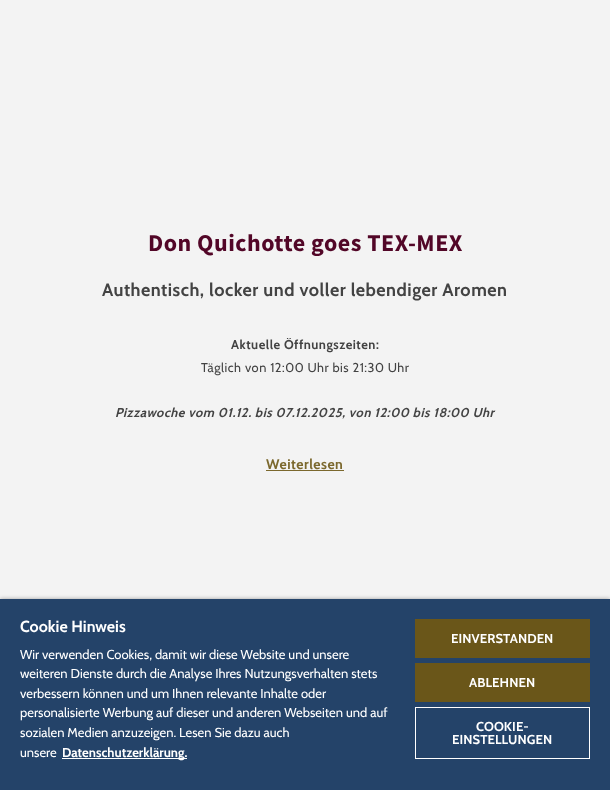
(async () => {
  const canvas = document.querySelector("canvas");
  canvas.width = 610;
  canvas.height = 790;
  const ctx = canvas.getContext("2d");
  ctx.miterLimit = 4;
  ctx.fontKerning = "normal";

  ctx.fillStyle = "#f3f3f3";
  ctx.fillRect(0, 0, 610, 790);
  ctx.fillStyle = "#7b682d";
  ctx.fillRect(266, 470, 78, 1);
  ctx.fillStyle = "rgba(0, 0, 0, 0.35)";
  ctx.filter = "blur(2px)";
  ctx.beginPath();
  ctx.rect(0, 599, 610, 191);
  ctx.fill();
  ctx.filter = "none";
  for (const [x, y, w, h, color] of [
    [0, 599, 610, 191, "#244369"],
    [62, 758, 125, 1, "#ffffff"],
    [415, 619, 175, 39, "#6a5619"],
    [415, 663, 175, 39, "#6a5619"],
  ]) {
    ctx.fillStyle = color;
    ctx.fillRect(x, y, w, h);
  }
  ctx.strokeStyle = "#ffffff";
  ctx.strokeRect(415.5, 707.5, 174, 51);
  ctx.letterSpacing = "0.5px";
  ctx.font = "bold 24px Source Sans Pro";
  ctx.fillStyle = "#520627";
  ctx.fillText("Don Quichotte goes TEX-MEX", 148, 251);
  ctx.font = "bold 18px Cabin";
  ctx.fillStyle = "#434343";
  ctx.fillText("Authentisch, locker und voller lebendiger Aromen", 102, 296);
  ctx.font = "bold 12.8px Cabin";
  ctx.fillText("Aktuelle Öffnungszeiten:", 231, 349);
  ctx.font = "12.8px Cabin";
  ctx.fillText("Täglich von 12:00 Uhr bis 21:30 Uhr", 201, 372);
  ctx.font = "italic bold 12.8px Cabin";
  ctx.fillText("Pizzawoche vom 01.12. bis 07.12.2025, von 12:00 bis 18:00 Uhr", 115, 417);
  ctx.font = "bold 14px Cabin";
  ctx.fillStyle = "#7b682d";
  ctx.fillText("Weiterlesen", 266, 469);
  ctx.letterSpacing = "0px";
  ctx.font = "bold 16px Cabin";
  ctx.fillStyle = "#ffffff";
  ctx.fillText("Cookie Hinweis", 20, 632);
  ctx.font = "13px Cabin";
  for (const [text, x, y] of [
    ["Wir verwenden Cookies, damit wir diese Website und unsere", 20, 659],
    ["weiteren Dienste durch die Analyse Ihres Nutzungsverhalten stets", 20, 678],
    ["verbessern können und um Ihnen relevante Inhalte oder", 20, 698],
    ["personalisierte Werbung auf dieser und anderen Webseiten und auf", 20, 717],
    ["sozialen Medien anzuzeigen. Lesen Sie dazu auch", 20, 737],
    ["unsere", 20, 757],
  ]) {
    ctx.fillText(text, x, y);
  }
  ctx.font = "bold 13px Cabin";
  ctx.fillText("Datenschutzerklärung.", 62, 757);
  ctx.letterSpacing = "0.1px";
  for (const [text, x, y] of [
    ["EINVERSTANDEN", 451, 643],
    ["ABLEHNEN", 469, 687],
    ["COOKIE-", 476, 731],
    ["EINSTELLUNGEN", 452, 744],
  ]) {
    ctx.fillText(text, x, y);
  }
})();
